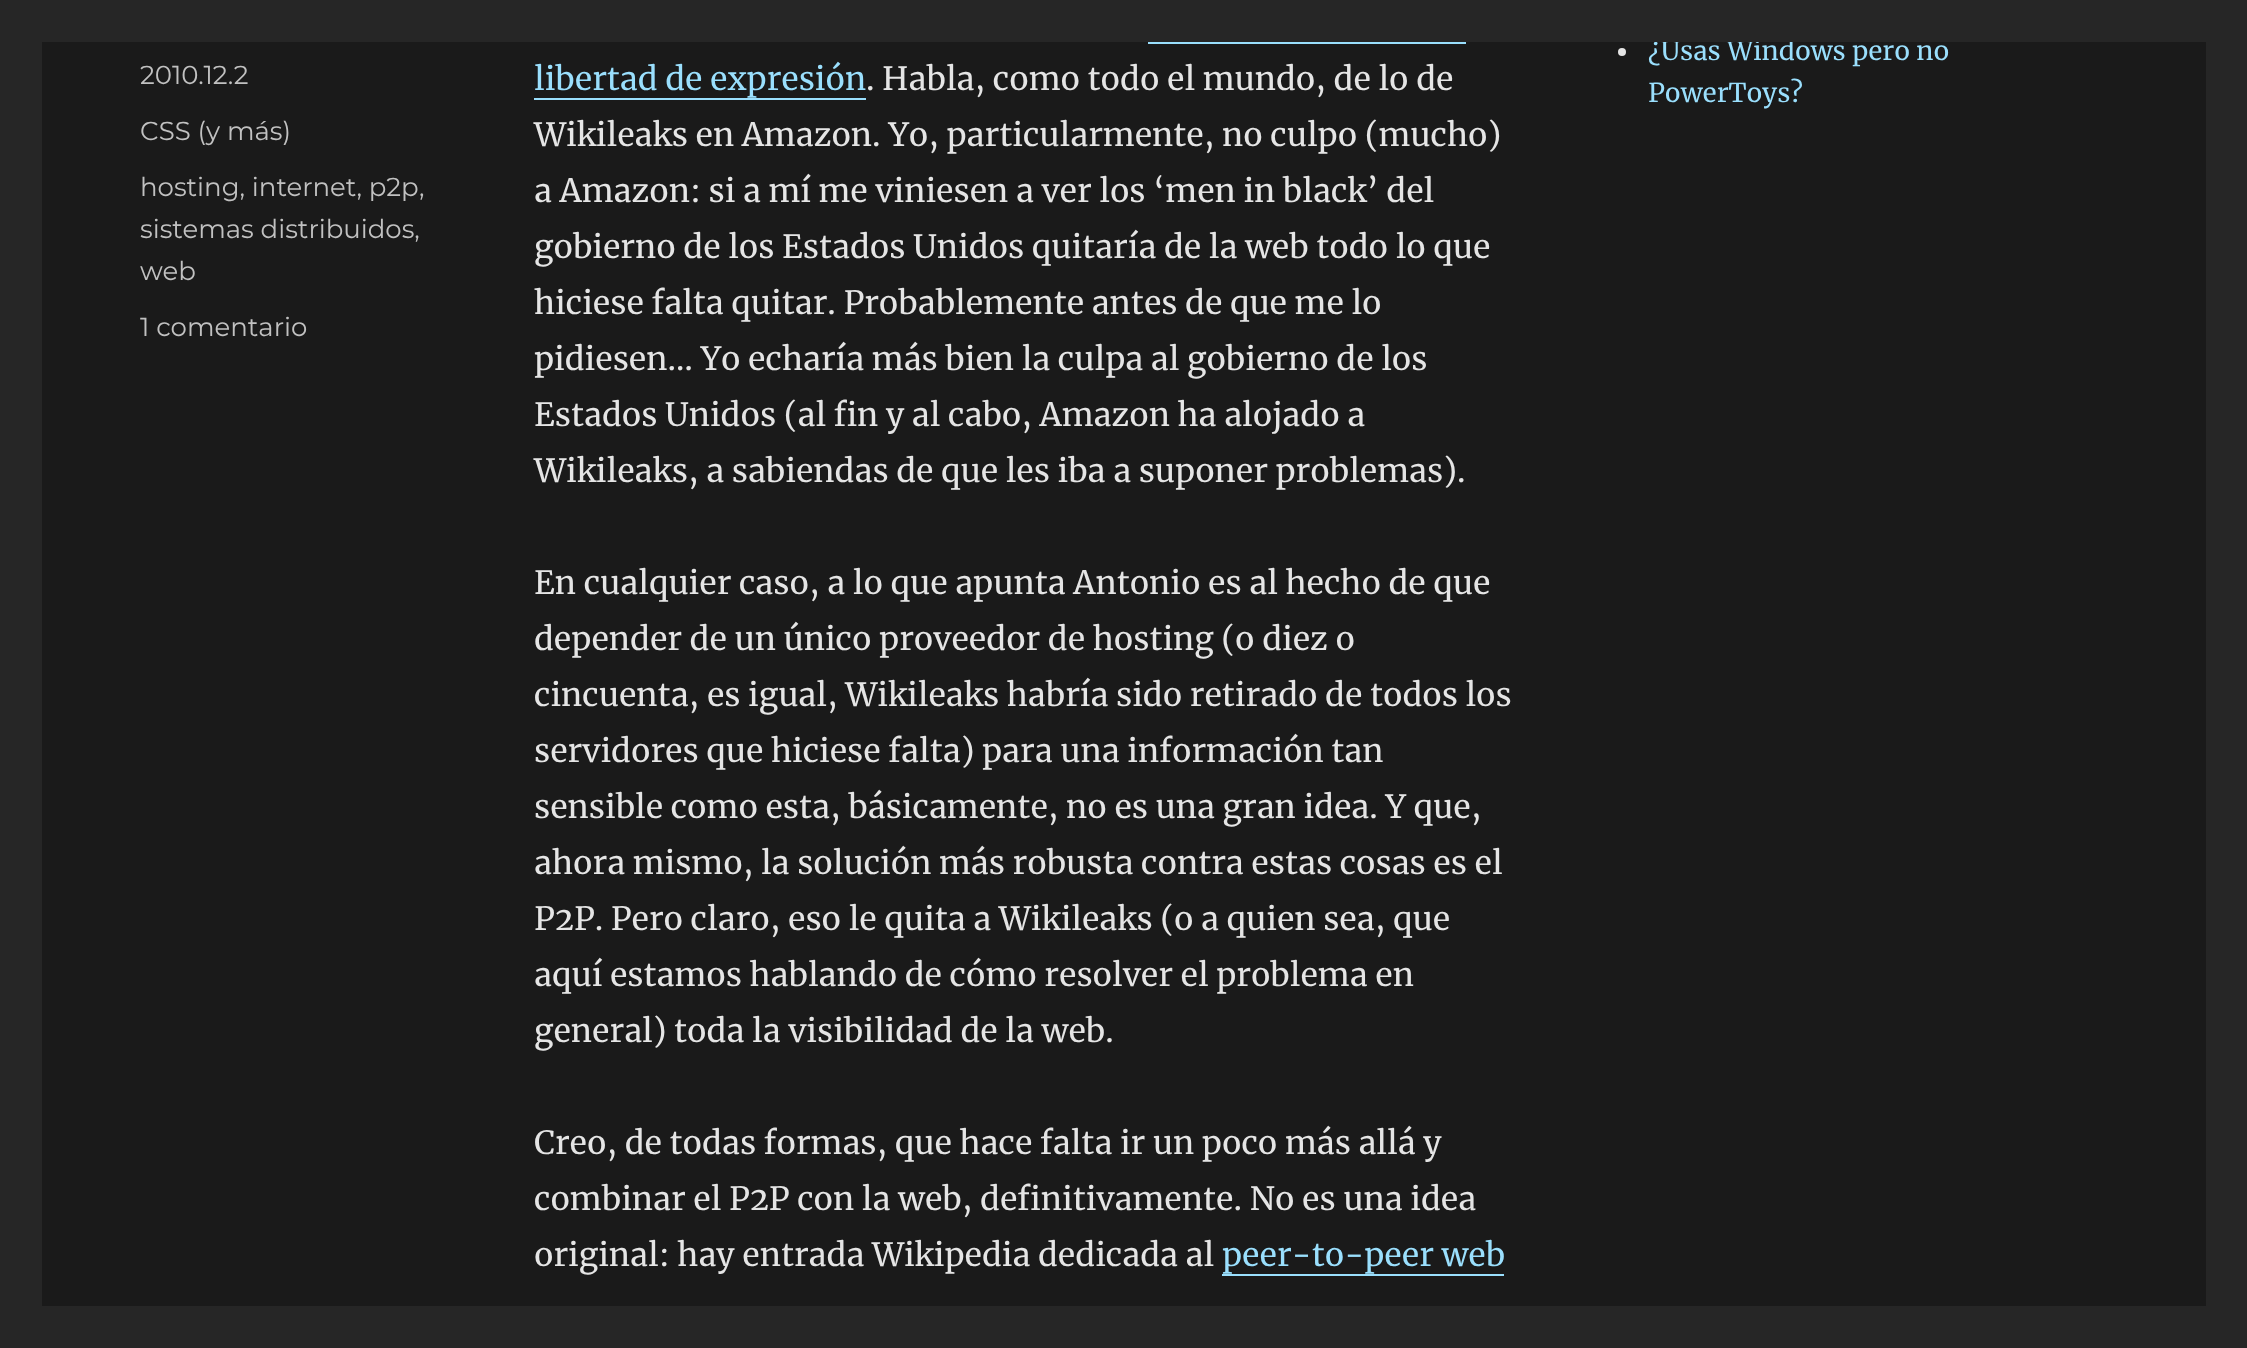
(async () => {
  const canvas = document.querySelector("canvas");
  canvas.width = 2247;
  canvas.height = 1348;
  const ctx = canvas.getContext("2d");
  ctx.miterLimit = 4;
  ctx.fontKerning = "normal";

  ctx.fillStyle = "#262626";
  ctx.fillRect(0, 0, 2247, 1348);
  for (const [x, y, w, h, color] of [
    [42, 42, 2164, 1264, "#1a1a1a"],
    [1148, 42, 318, 2, "#9adffd"],
    [534, 98, 332, 2, "#9adffd"],
    [1222, 1274, 282, 2, "#9adffd"],
  ]) {
    ctx.fillStyle = color;
    ctx.fillRect(x, y, w, h);
  }
  ctx.fillStyle = "#e5e5e5";
  ctx.beginPath();
  ctx.arc(1622, 52, 4, 0, Math.PI * 2);
  ctx.fill();
  ctx.font = "100 26px Montserrat";
  ctx.fillStyle = "#c1c1c1";
  for (const [text, x, y] of [
    ["2010.12.2", 140, 84],
    ["CSS (y más)", 140, 140],
    ["hosting, internet, p2p", 140, 196],
    [",", 419, 196],
    ["sistemas distribuidos,", 140, 238],
    ["web", 140, 280],
    ["1 comentario", 140, 336],
  ]) {
    ctx.fillText(text, x, y);
  }
  ctx.font = "32px Merriweather";
  ctx.fillStyle = "#9adffd";
  ctx.fillText("libertad de expresión", 534, 90);
  ctx.fillStyle = "#e5e5e5";
  for (const [text, x, y] of [
    [". Habla, como todo el mundo, de lo de", 866, 90],
    ["Wikileaks en Amazon. Yo, particularmente, no culpo (mucho)", 534, 146],
    ["a Amazon: si a mí me viniesen a ver los ‘men in black’ del", 534, 202],
    ["gobierno de los Estados Unidos quitaría de la web todo lo que", 534, 258],
    ["hiciese falta quitar. Probablemente antes de que me lo", 534, 314],
    ["pidiesen… Yo echaría más bien la culpa al gobierno de los", 534, 370],
    ["Estados Unidos (al fin y al cabo, Amazon ha alojado a", 534, 426],
    ["Wikileaks, a sabiendas de que les iba a suponer problemas).", 534, 482],
    ["En cualquier caso, a lo que apunta Antonio es al hecho de que", 534, 594],
    ["depender de un único proveedor de hosting (o diez o", 534, 650],
    ["cincuenta, es igual, Wikileaks habría sido retirado de todos los", 534, 706],
    ["servidores que hiciese falta) para una información tan", 534, 762],
    ["sensible como esta, básicamente, no es una gran idea. Y que,", 534, 818],
    ["ahora mismo, la solución más robusta contra estas cosas es el", 534, 874],
    ["P2P. Pero claro, eso le quita a Wikileaks (o a quien sea, que", 534, 930],
    ["aquí estamos hablando de cómo resolver el problema en", 534, 986],
    ["general) toda la visibilidad de la web.", 534, 1042],
    ["Creo, de todas formas, que hace falta ir un poco más allá y", 534, 1154],
    ["combinar el P2P con la web, definitivamente. No es una idea", 534, 1210],
    ["original: hay entrada Wikipedia dedicada al", 534, 1266],
  ]) {
    ctx.fillText(text, x, y);
  }
  ctx.fillStyle = "#9adffd";
  ctx.fillText("peer-to-peer web", 1222, 1266);
  ctx.font = "26px Merriweather";
  ctx.fillText("¿Usas Windows pero no", 1648, 60);
  ctx.fillText("PowerToys?", 1648, 102);
  ctx.fillStyle = "#262626";
  ctx.fillRect(1655, 38, 138, 4);
})();
